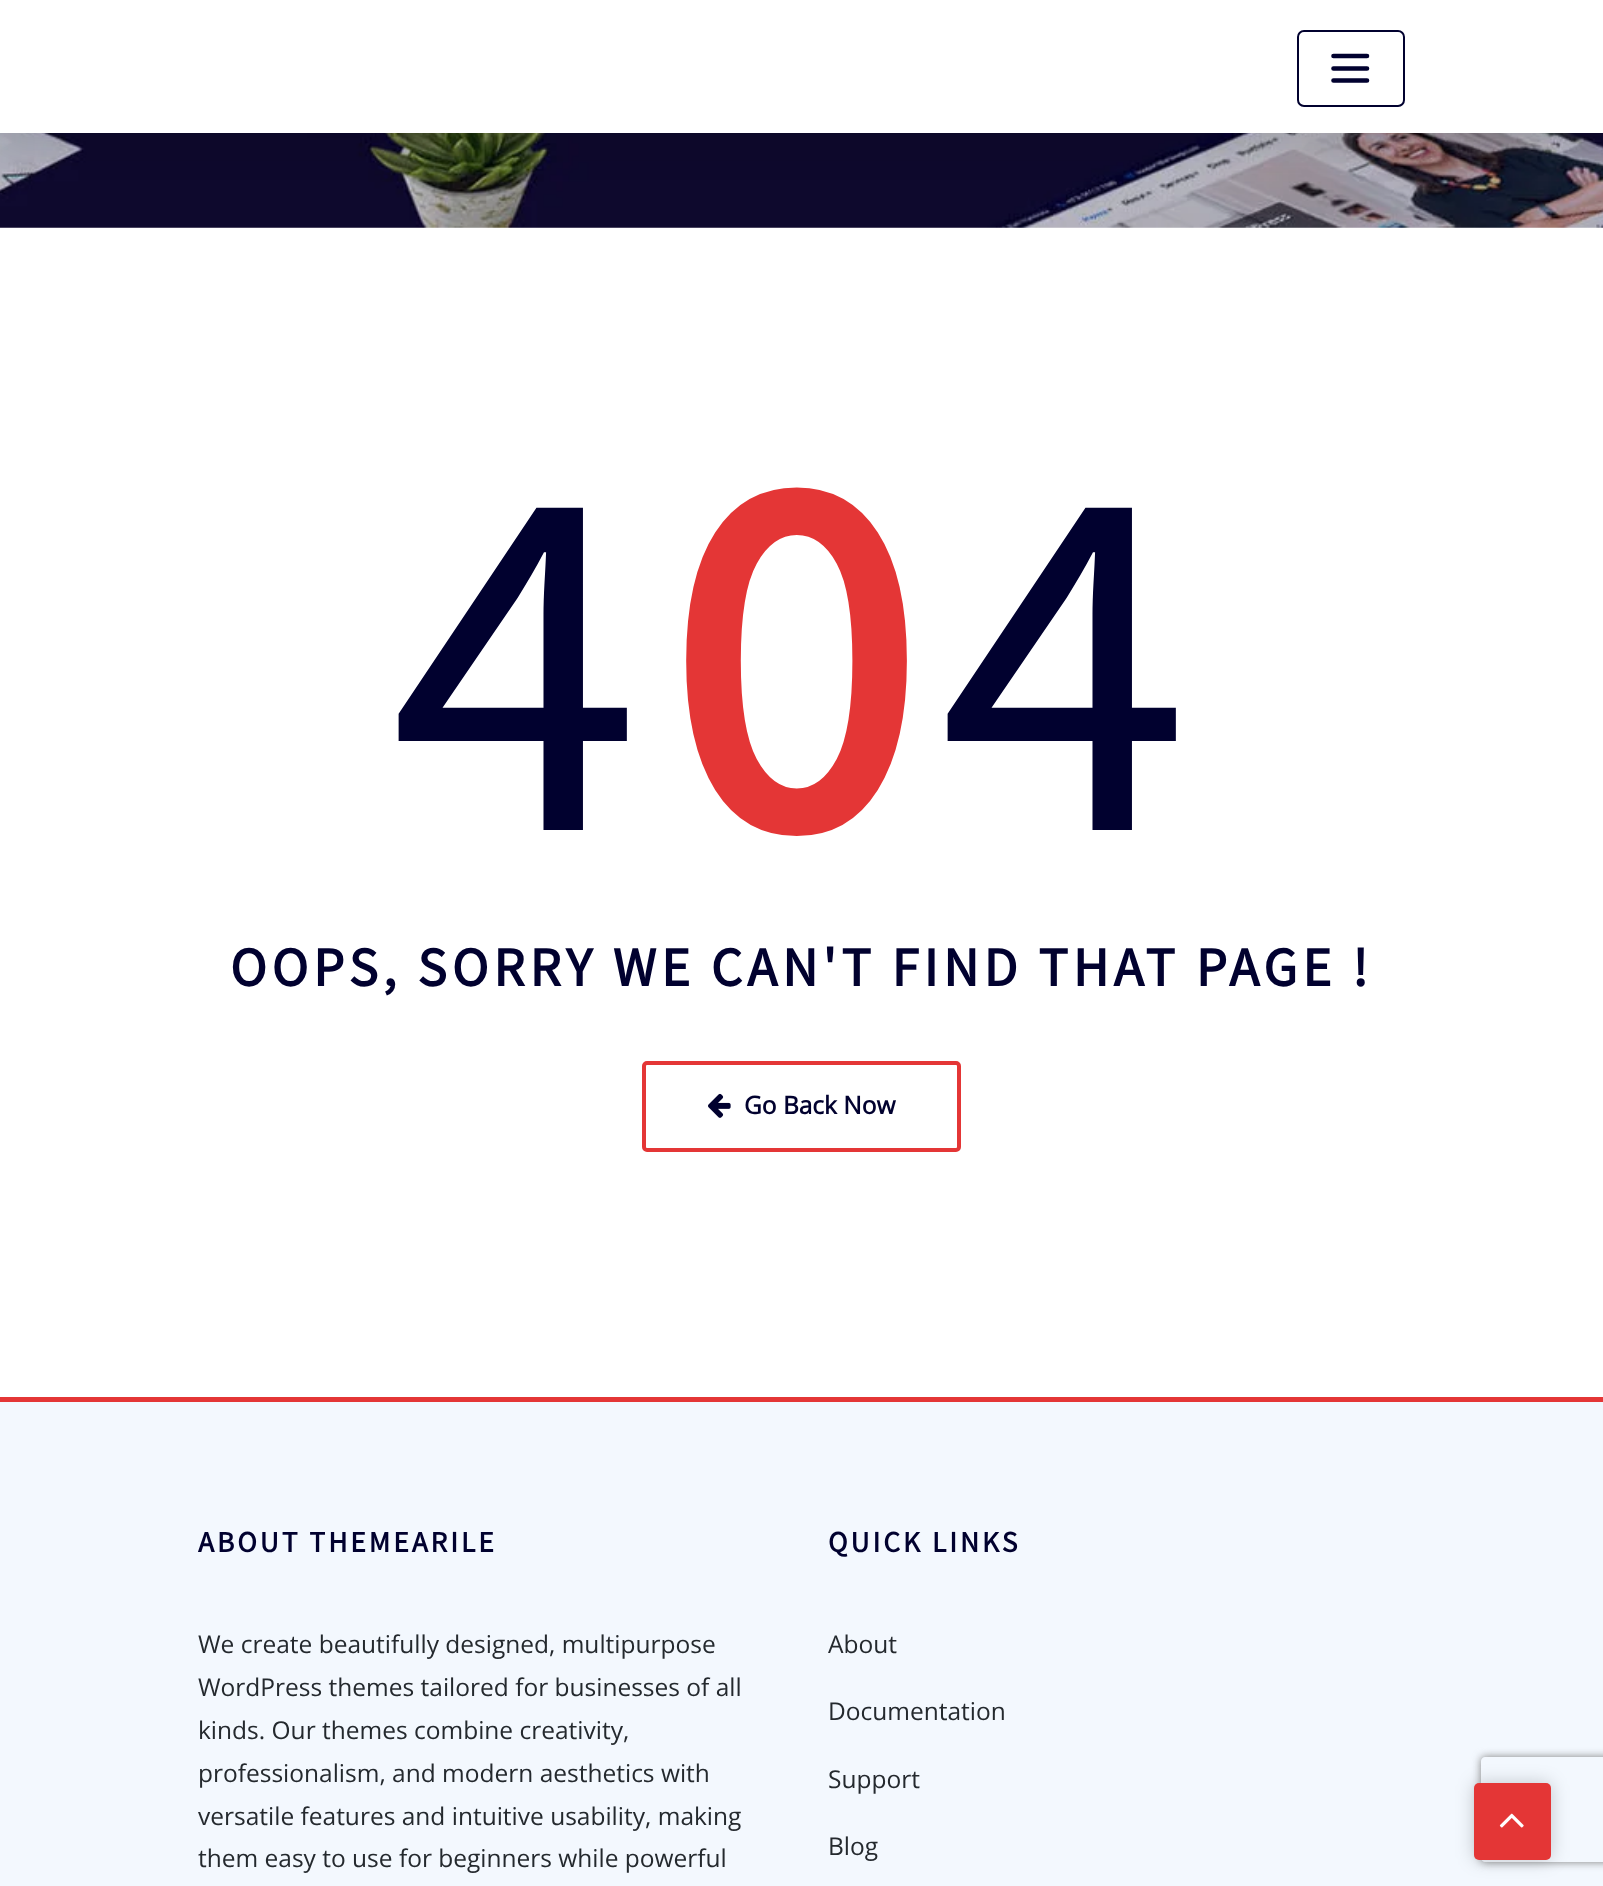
(async () => {
  const canvas = document.querySelector("canvas");
  canvas.width = 1603;
  canvas.height = 1886;
  const ctx = canvas.getContext("2d");
  ctx.miterLimit = 4;
  ctx.fontKerning = "normal";
  async function loadImage(src) {
    const img = new Image();
    img.src = src;
    await img.decode();
    return img;
  }
  let path;

  ctx.fillStyle = "#ffffff";
  ctx.fillRect(0, 0, 1603, 1886);
  ctx.drawImage(await loadImage("img/1.png"), 0, 133, 1603, 95);
  ctx.fillStyle = "rgba(0, 0, 0, 0.1)";
  ctx.filter = "blur(17.5px)";
  ctx.beginPath();
  ctx.rect(0, 14, 1603, 133);
  ctx.fill();
  ctx.filter = "none";
  ctx.fillStyle = "#ffffff";
  ctx.fillRect(0, 0, 1603, 133);
  ctx.beginPath();
  ctx.roundRect(1298, 31, 106, 75, 6);
  ctx.strokeStyle = "#01012f";
  ctx.lineWidth = 2;
  ctx.stroke();
  path = new Path2D("M1333.5 56H1367M1333.5 68.5H1367M1333.5 80.5H1367");
  ctx.lineWidth = 4.6;
  ctx.lineCap = "round";
  ctx.stroke(path);
  ctx.beginPath();
  ctx.roundRect(644, 1063, 315, 87, 3);
  ctx.strokeStyle = "#e43636";
  ctx.lineWidth = 4;
  ctx.stroke();
  ctx.drawImage(await loadImage("img/2.png"), 708, 1093, 23, 25);
  ctx.fillStyle = "#f3f8fe";
  ctx.fillRect(0, 1402, 1603, 484);
  ctx.fillStyle = "#e43636";
  ctx.fillRect(0, 1397, 1603, 5);
  ctx.fillStyle = "rgba(0, 0, 0, 0.2)";
  ctx.filter = "blur(9px)";
  ctx.beginPath();
  ctx.roundRect(1474, 1783, 77, 77, 5);
  ctx.fill();
  ctx.filter = "none";
  ctx.save();
  path = new Path2D("M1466 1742H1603V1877H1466ZM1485 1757H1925C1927 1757 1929 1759 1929 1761V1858C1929 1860 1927 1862 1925 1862H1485C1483 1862 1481 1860 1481 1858V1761C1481 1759 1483 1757 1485 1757Z");
  ctx.clip(path, "evenodd");
  ctx.fillStyle = "#808080";
  ctx.filter = "blur(4.5px)";
  ctx.beginPath();
  ctx.roundRect(1481, 1757, 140, 105, 4);
  ctx.fill();
  ctx.filter = "none";
  ctx.restore();
  ctx.fillStyle = "#e43636";
  ctx.beginPath();
  ctx.roundRect(1474, 1783, 77, 77, 5);
  ctx.fill();
  ctx.drawImage(await loadImage("img/3.png"), 1499, 1813, 25, 15);
  ctx.letterSpacing = "23px";
  ctx.font = "505px Source Sans Pro";
  ctx.fillStyle = "#01012f";
  ctx.fillText("4", 390, 830);
  ctx.font = "bold 505px Source Sans Pro";
  ctx.fillStyle = "#e43636";
  ctx.fillText("0", 664, 830);
  ctx.font = "505px Source Sans Pro";
  ctx.fillStyle = "#01012f";
  ctx.fillText("4", 939, 830);
  ctx.letterSpacing = "4.9px";
  ctx.font = "bold 55.1px Source Sans Pro";
  ctx.fillText("OOPS, SORRY WE CAN'T FIND THAT PAGE !", 230, 986);
  ctx.letterSpacing = "0px";
  ctx.font = "bold 24.5px Open Sans";
  ctx.fillText("Go Back Now", 744, 1114);
  ctx.letterSpacing = "3px";
  ctx.font = "bold 29.4px Source Sans Pro";
  ctx.fillText("ABOUT THEMEARILE", 198, 1552);
  ctx.letterSpacing = "0px";
  ctx.font = "24.5px Open Sans";
  ctx.fillStyle = "#24292e";
  for (const [text, x, y] of [
    ["We create beautifully designed, multipurpose", 198, 1653],
    ["WordPress themes tailored for businesses of all", 198, 1696],
    ["kinds. Our themes combine creativity,", 198, 1739],
    ["professionalism, and modern aesthetics with", 198, 1782],
    ["versatile features and intuitive usability, making", 198, 1825],
    ["them easy to use for beginners while powerful", 198, 1867],
  ]) {
    ctx.fillText(text, x, y);
  }
  ctx.letterSpacing = "3px";
  ctx.font = "bold 29.4px Source Sans Pro";
  ctx.fillStyle = "#01012f";
  ctx.fillText("QUICK LINKS", 828, 1552);
  ctx.letterSpacing = "0px";
  ctx.font = "24.5px Open Sans";
  ctx.fillStyle = "#24292e";
  for (const [text, x, y] of [
    ["About", 828, 1653],
    ["Documentation", 828, 1720],
    ["Support", 828, 1788],
    ["Blog", 828, 1855],
  ]) {
    ctx.fillText(text, x, y);
  }
})();
